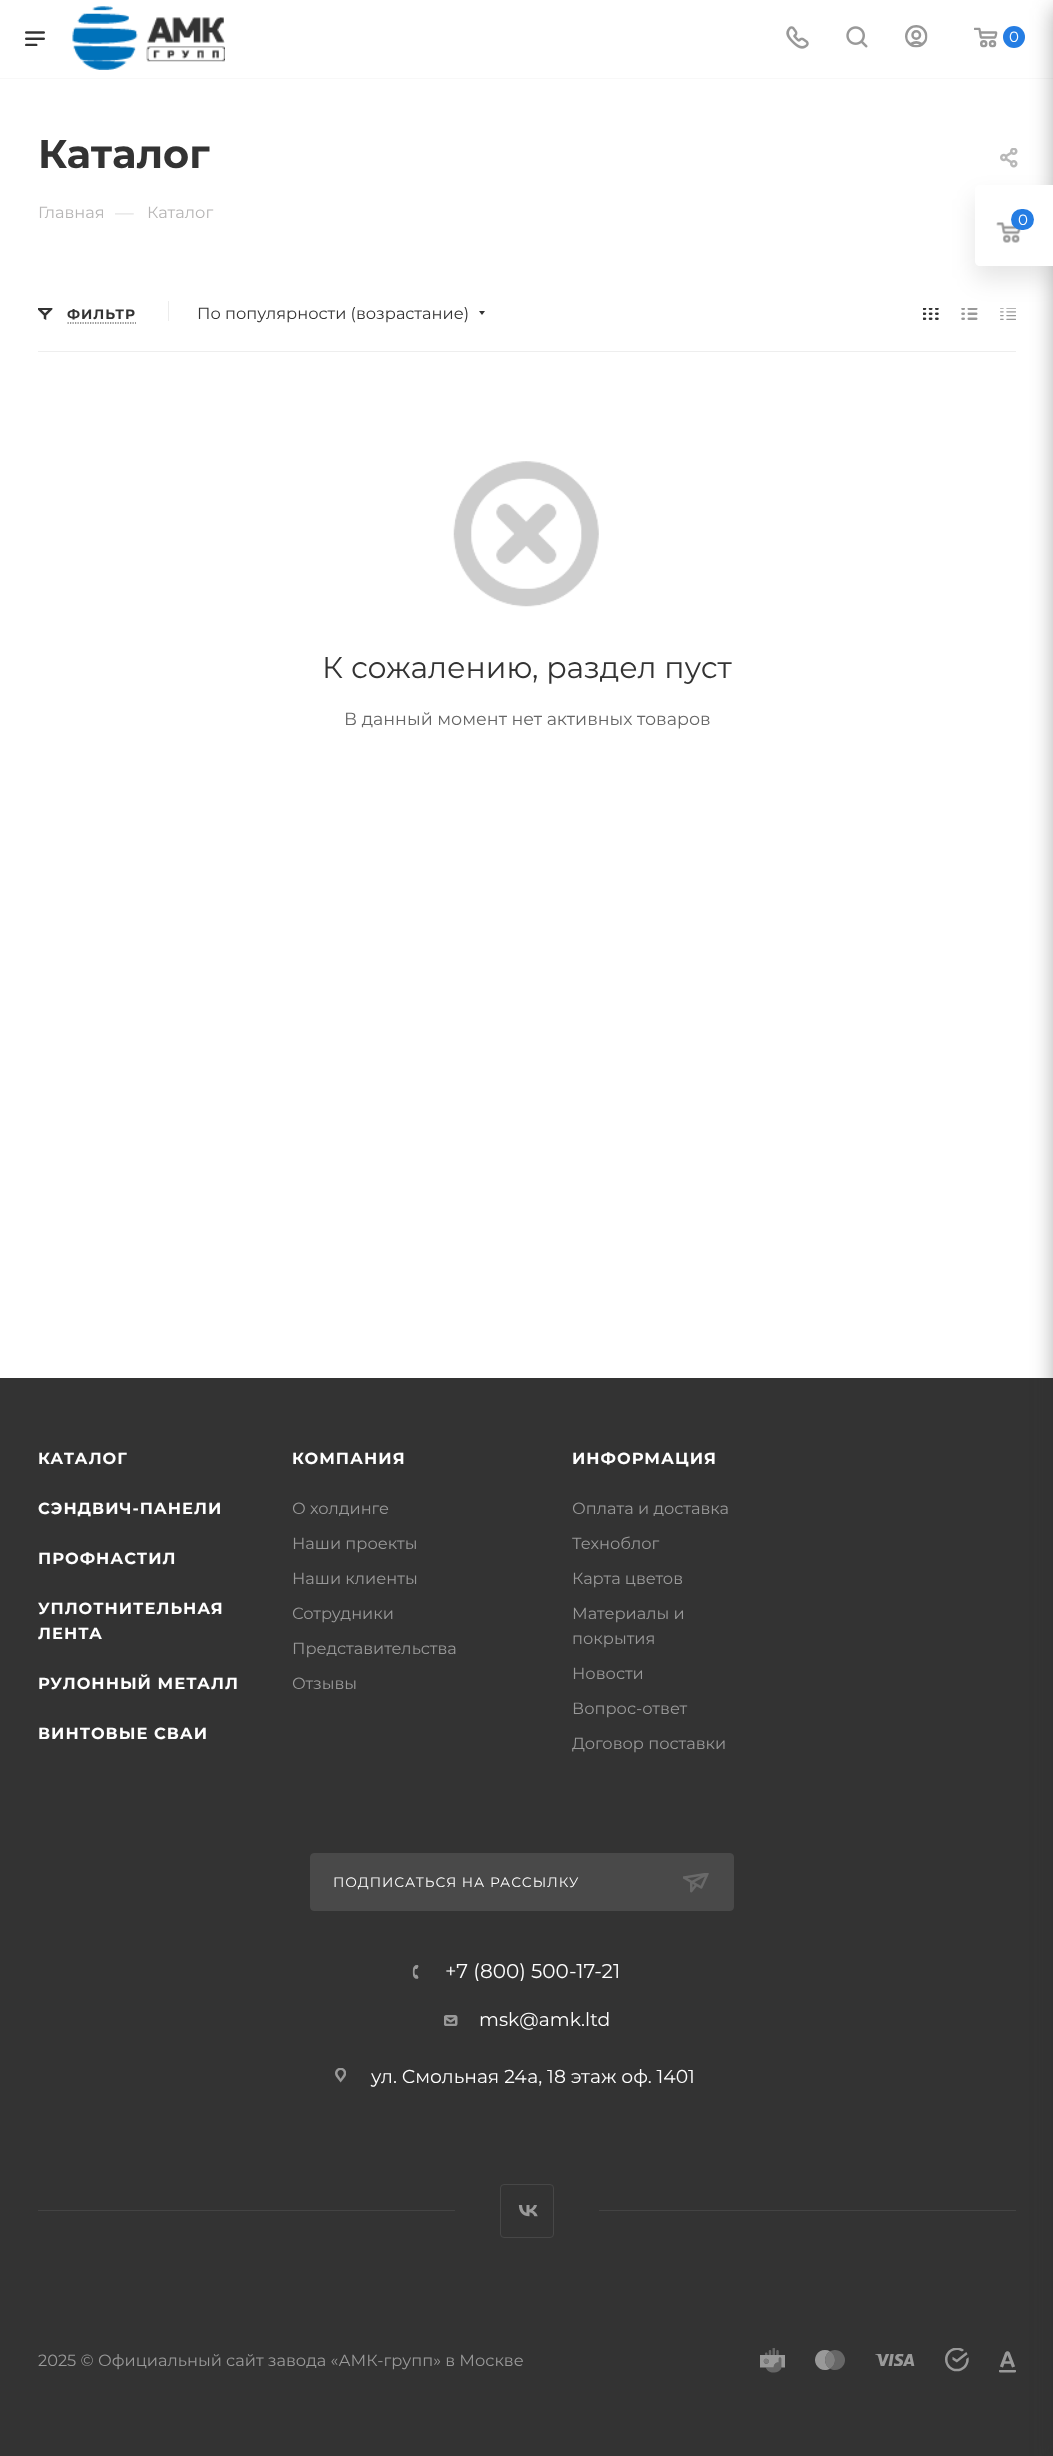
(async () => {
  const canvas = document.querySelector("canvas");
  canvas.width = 1053;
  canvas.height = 2456;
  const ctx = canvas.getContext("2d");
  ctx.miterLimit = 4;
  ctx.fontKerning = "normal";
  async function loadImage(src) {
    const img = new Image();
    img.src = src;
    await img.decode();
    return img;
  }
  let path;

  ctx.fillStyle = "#ffffff";
  ctx.fillRect(0, 0, 1053, 2456);
  ctx.fillStyle = "#f8f8f8";
  ctx.fillRect(0, 78, 1053, 1);
  ctx.drawImage(await loadImage("img/1.png"), 25, 31, 20, 15);
  ctx.drawImage(await loadImage("img/2.png"), 72, 6, 153, 64);
  ctx.drawImage(await loadImage("img/3.png"), 786, 26, 23, 23);
  ctx.drawImage(await loadImage("img/4.png"), 846, 26, 22, 22);
  ctx.drawImage(await loadImage("img/5.png"), 905, 25, 23, 23);
  ctx.drawImage(await loadImage("img/6.png"), 974, 27, 24, 21);
  ctx.fillStyle = "#257de3";
  ctx.beginPath();
  ctx.arc(1014, 37, 11, 0, Math.PI * 2);
  ctx.fill();
  ctx.drawImage(await loadImage("img/7.png"), 1000, 148, 18, 20);
  ctx.drawImage(await loadImage("img/8.png"), 38, 308, 15, 12);
  path = new Path2D("M67.5 323H136");
  ctx.strokeStyle = "#333333";
  ctx.lineWidth = 1.2;
  ctx.setLineDash([1.25, 1.25]);
  ctx.stroke(path);
  ctx.fillStyle = "#ececec";
  ctx.fillRect(168, 301, 1, 20);
  ctx.fillStyle = "#333333";
  path = new Path2D("M479 311H485L482 315Z");
  ctx.fill(path, "evenodd");
  ctx.drawImage(await loadImage("img/9.png"), 923, 308, 16, 12);
  ctx.drawImage(await loadImage("img/10.png"), 961, 308, 17, 12);
  ctx.drawImage(await loadImage("img/11.png"), 1000, 308, 16, 12);
  ctx.fillStyle = "#eeeeee";
  ctx.fillRect(38, 351, 978, 1);
  ctx.drawImage(await loadImage("img/12.png"), 453, 461, 146, 146);
  ctx.fillStyle = "#333333";
  ctx.fillRect(0, 1378, 1053, 1078);
  ctx.fillStyle = "rgba(44, 44, 44, 0.4)";
  ctx.filter = "blur(11px)";
  ctx.beginPath();
  ctx.roundRect(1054, 8, 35, 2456, 2.5);
  ctx.fill();
  ctx.filter = "none";
  ctx.fillStyle = "rgba(0, 0, 0, 0.1)";
  ctx.filter = "blur(12.5px)";
  ctx.beginPath();
  ctx.roundRect(975, 198, 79, 81, 5);
  ctx.fill();
  ctx.filter = "none";
  ctx.fillStyle = "#ffffff";
  path = new Path2D("M980 185H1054V266H980C977 266 975 264 975 261V190C975 187 977 185 980 185Z");
  ctx.fill(path);
  ctx.drawImage(await loadImage("img/13.png"), 996, 222, 25, 21);
  ctx.fillStyle = "#257de3";
  ctx.beginPath();
  ctx.roundRect(1011, 209, 23, 21, 10.5);
  ctx.fill();
  ctx.fillStyle = "#494949";
  ctx.beginPath();
  ctx.roundRect(310.5, 1853.5, 423, 57, 3.5);
  ctx.fill();
  ctx.strokeStyle = "#494949";
  ctx.lineWidth = 1;
  ctx.setLineDash([]);
  ctx.stroke();
  ctx.drawImage(await loadImage("img/14.png"), 683, 1873, 26, 20);
  ctx.drawImage(await loadImage("img/15.png"), 412, 1965, 7, 14);
  ctx.drawImage(await loadImage("img/16.png"), 444, 2015, 14, 11);
  ctx.drawImage(await loadImage("img/17.png"), 335, 2068, 11, 15);
  ctx.fillStyle = "#434343";
  ctx.fillRect(38, 2210, 978, 1);
  ctx.fillStyle = "#333333";
  ctx.fillRect(455, 2210, 144, 1);
  ctx.drawImage(await loadImage("img/18.png"), 518, 2205, 20, 12);
  ctx.beginPath();
  ctx.roundRect(500.5, 2184.5, 53, 53, 3.5);
  ctx.strokeStyle = "#474747";
  ctx.stroke();
  ctx.drawImage(await loadImage("img/19.png"), 760, 2348, 25, 25);
  ctx.drawImage(await loadImage("img/20.png"), 815, 2350, 30, 20);
  ctx.drawImage(await loadImage("img/21.png"), 875, 2354, 40, 12);
  ctx.drawImage(await loadImage("img/22.png"), 945, 2348, 24, 24);
  ctx.drawImage(await loadImage("img/23.png"), 999, 2351, 17, 22);
  ctx.font = "15px Montserrat";
  ctx.fillStyle = "#ffffff";
  ctx.fillText("0", 1009, 42);
  ctx.font = "bold 40px Montserrat";
  ctx.fillStyle = "#333333";
  ctx.fillText("Каталог", 38, 168);
  ctx.font = "16.25px Montserrat";
  ctx.fillStyle = "#b6b5b5";
  ctx.fillText("Главная", 38, 218);
  ctx.font = "18.75px Montserrat";
  ctx.fillStyle = "#dddddd";
  ctx.fillText("—", 115, 219);
  ctx.font = "16.25px Montserrat";
  ctx.fillStyle = "#b6b5b5";
  ctx.fillText("Каталог", 147, 218);
  ctx.letterSpacing = "1px";
  ctx.font = "bold 13.75px Montserrat";
  ctx.fillStyle = "#333333";
  ctx.fillText("ФИЛЬТР", 67, 319);
  ctx.letterSpacing = "0px";
  ctx.font = "16.25px Montserrat";
  ctx.fillText("По популярности (возрастание)", 197, 319);
  ctx.font = "30px Montserrat";
  ctx.fillText("К сожалению, раздел пуст", 322, 678);
  ctx.font = "17.5px Montserrat";
  ctx.fillStyle = "#666666";
  ctx.fillText("В данный момент нет активных товаров", 344, 725);
  ctx.font = "15px Montserrat";
  ctx.fillStyle = "#ffffff";
  ctx.fillText("0", 1018, 225);
  ctx.letterSpacing = "1px";
  ctx.font = "bold 16.25px Montserrat";
  for (const [text, x, y] of [
    ["КАТАЛОГ", 38, 1464],
    ["СЭНДВИЧ-ПАНЕЛИ", 38, 1514],
    ["ПРОФНАСТИЛ", 38, 1564],
    ["УПЛОТНИТЕЛЬНАЯ", 38, 1614],
    ["ЛЕНТА", 38, 1639],
    ["РУЛОННЫЙ МЕТАЛЛ", 38, 1689],
    ["ВИНТОВЫЕ СВАИ", 38, 1739],
    ["КОМПАНИЯ", 292, 1464],
  ]) {
    ctx.fillText(text, x, y);
  }
  ctx.letterSpacing = "0px";
  ctx.font = "16.25px Montserrat";
  ctx.fillStyle = "#999999";
  for (const [text, x, y] of [
    ["О холдинге", 292, 1514],
    ["Наши проекты", 292, 1549],
    ["Наши клиенты", 292, 1584],
    ["Сотрудники", 292, 1619],
    ["Представительства", 292, 1654],
    ["Отзывы", 292, 1689],
  ]) {
    ctx.fillText(text, x, y);
  }
  ctx.letterSpacing = "1px";
  ctx.font = "bold 16.25px Montserrat";
  ctx.fillStyle = "#ffffff";
  ctx.fillText("ИНФОРМАЦИЯ", 572, 1464);
  ctx.letterSpacing = "0px";
  ctx.font = "16.25px Montserrat";
  ctx.fillStyle = "#999999";
  for (const [text, x, y] of [
    ["Оплата и доставка", 572, 1514],
    ["Техноблог", 572, 1549],
    ["Карта цветов", 572, 1584],
    ["Материалы и", 572, 1619],
    ["покрытия", 572, 1644],
    ["Новости", 572, 1679],
    ["Вопрос-ответ", 572, 1714],
    ["Договор поставки", 572, 1749],
  ]) {
    ctx.fillText(text, x, y);
  }
  ctx.letterSpacing = "1px";
  ctx.font = "13.75px Montserrat";
  ctx.fillStyle = "#ffffff";
  ctx.fillText("ПОДПИСАТЬСЯ НА РАССЫЛКУ", 333, 1887);
  ctx.save();
  ctx.beginPath();
  ctx.rect(409, 1961, 227, 20);
  ctx.clip();
  ctx.letterSpacing = "0px";
  ctx.font = "20px Montserrat";
  ctx.fillText("+7 (800) 500-17-21", 445, 1978);
  ctx.restore();
  ctx.letterSpacing = "0px";
  ctx.font = "18.75px Montserrat";
  ctx.fillText("msk@amk.ltd", 479, 2026);
  ctx.fillText("ул. Смольная 24а, 18 этаж оф. 1401", 371, 2083);
  ctx.font = "16.25px Montserrat";
  ctx.fillStyle = "#999999";
  ctx.fillText("2025 © Официальный сайт завода «АМК-групп» в Москве", 38, 2366);
})();
